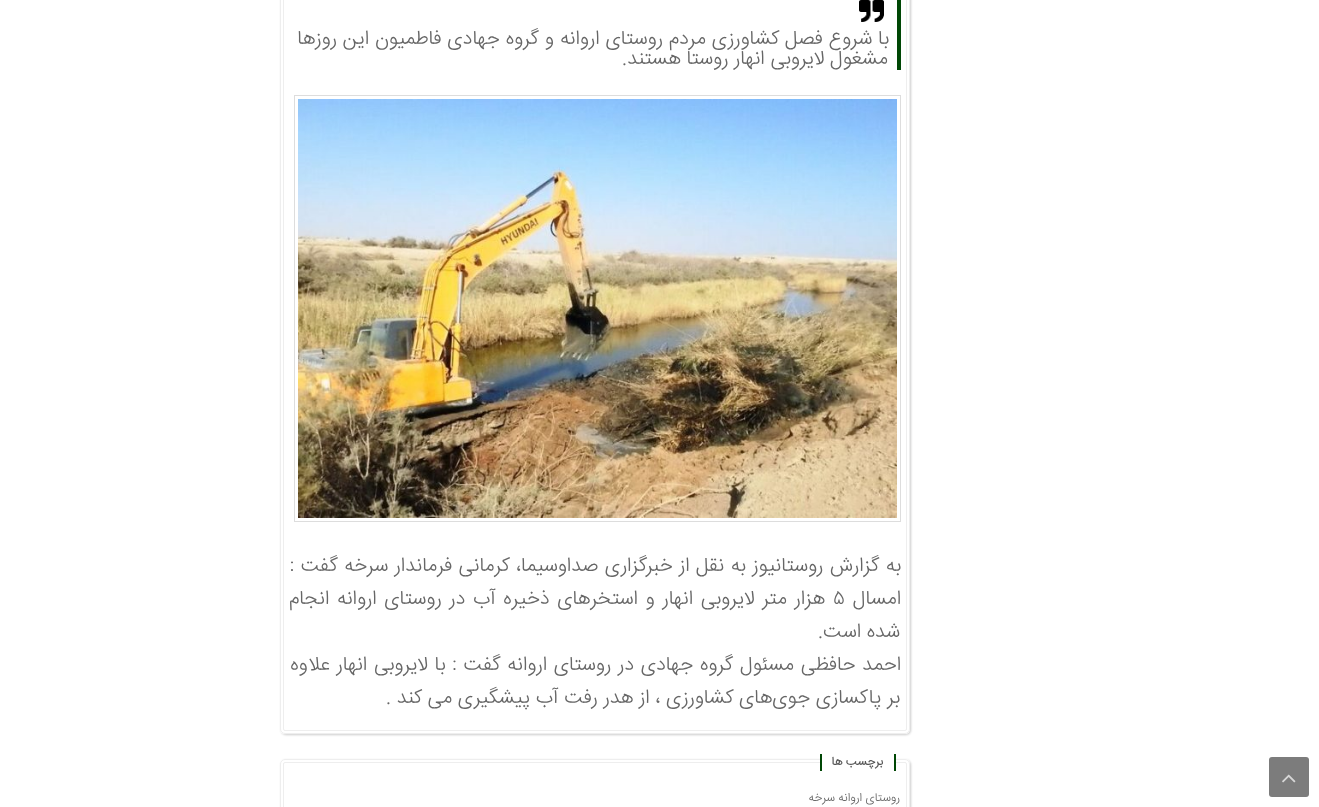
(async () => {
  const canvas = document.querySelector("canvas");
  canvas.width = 1319;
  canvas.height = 807;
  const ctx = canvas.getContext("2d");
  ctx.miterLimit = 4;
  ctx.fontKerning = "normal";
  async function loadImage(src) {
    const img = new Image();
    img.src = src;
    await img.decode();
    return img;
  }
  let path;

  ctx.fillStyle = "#ffffff";
  ctx.fillRect(0, 0, 1319, 807);
  ctx.fillStyle = "#7c7c7c";
  ctx.beginPath();
  ctx.roundRect(1269, 757, 40, 40, 3);
  ctx.fill();
  ctx.drawImage(await loadImage("img/1.png"), 1282, 774, 14, 9);
  ctx.save();
  path = new Path2D("M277 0H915V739H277ZM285-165H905C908-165 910-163 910-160V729C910 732 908 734 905 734H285C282 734 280 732 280 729V-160C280-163 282-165 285-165Z");
  ctx.clip(path, "evenodd");
  ctx.fillStyle = "rgba(0, 0, 0, 0.2)";
  ctx.filter = "blur(1px)";
  ctx.beginPath();
  ctx.roundRect(281, -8, 630, 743, 5);
  ctx.fill();
  ctx.filter = "none";
  ctx.restore();
  ctx.beginPath();
  ctx.roundRect(280.5, -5.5, 629, 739, 4.5);
  ctx.strokeStyle = "#eeeeee";
  ctx.stroke();
  ctx.beginPath();
  ctx.roundRect(283.5, -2.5, 623, 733, 1.5);
  ctx.stroke();
  ctx.fillStyle = "#004705";
  ctx.fillRect(897, 0, 4, 70);
  ctx.drawImage(await loadImage("img/2.png"), 859, 0, 25, 22);
  ctx.strokeStyle = "#dddddd";
  ctx.strokeRect(294.5, 95.5, 606, 426);
  ctx.drawImage(await loadImage("img/3.png"), 298, 99, 599, 419);
  ctx.save();
  path = new Path2D("M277 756H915V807H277ZM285 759H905C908 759 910 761 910 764V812C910 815 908 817 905 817H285C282 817 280 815 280 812V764C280 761 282 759 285 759Z");
  ctx.clip(path, "evenodd");
  ctx.fillStyle = "rgba(0, 0, 0, 0.2)";
  ctx.filter = "blur(1px)";
  ctx.beginPath();
  ctx.roundRect(281, 760, 630, 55, 5);
  ctx.fill();
  ctx.filter = "none";
  ctx.restore();
  ctx.beginPath();
  ctx.roundRect(280.5, 759.5, 629, 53, 4.5);
  ctx.strokeStyle = "#eeeeee";
  ctx.stroke();
  ctx.beginPath();
  ctx.roundRect(283.5, 762.5, 623, 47, 1.5);
  ctx.stroke();
  ctx.fillStyle = "#ffffff";
  ctx.beginPath();
  ctx.roundRect(820, 752, 76, 20, 3);
  ctx.fill();
  ctx.fillStyle = "#004705";
  ctx.fillRect(894, 754, 2, 17);
  ctx.fillRect(820, 754, 2, 17);
  ctx.wordSpacing = "0.25px";
  ctx.direction = "rtl";
  ctx.font = "300 20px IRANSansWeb";
  ctx.fillStyle = "#666666";
  ctx.fillText("با شروع فصل کشاورزی مردم روستای اروانه و گروه جهادی فاطمیون این روزها", 889, 44);
  ctx.wordSpacing = "0px";
  ctx.fillText("مشغول لایروبی انهار روستا هستند.", 888, 64);
  ctx.wordSpacing = "0.75px";
  ctx.fillText("به گزارش روستانیوز به نقل از خبرگزاری صداوسیما، کرمانی فرماندار سرخه گفت :", 901, 571);
  ctx.wordSpacing = "0px";
  ctx.fillText("امسال", 901, 604);
  ctx.direction = "ltr";
  ctx.fillText("۵", 833, 604);
  ctx.wordSpacing = "2px";
  ctx.direction = "rtl";
  ctx.fillText("هزار متر لایروبی انهار و استخر‌های ذخیره آب در روستای اروانه انجام", 825, 604);
  ctx.wordSpacing = "0px";
  ctx.fillText("شده است.", 900, 637);
  ctx.wordSpacing = "1.1px";
  ctx.fillText("احمد حافظی مسئول گروه جهادی در روستای اروانه گفت : با لایروبی انهار علاوه", 901, 670);
  ctx.wordSpacing = "0px";
  ctx.fillText("بر پاکسازی جوی‌های کشاورزی ، از هدر رفت آب پیشگیری می کند .", 900, 703);
  ctx.font = "bold 12px IRANSansWeb";
  ctx.fillStyle = "#555555";
  ctx.fillText("برچسب ها", 883, 765);
  ctx.font = "300 12px IRANSansWeb";
  ctx.fillStyle = "#666666";
  ctx.fillText("روستای اروانه سرخه", 900, 801);
})();
